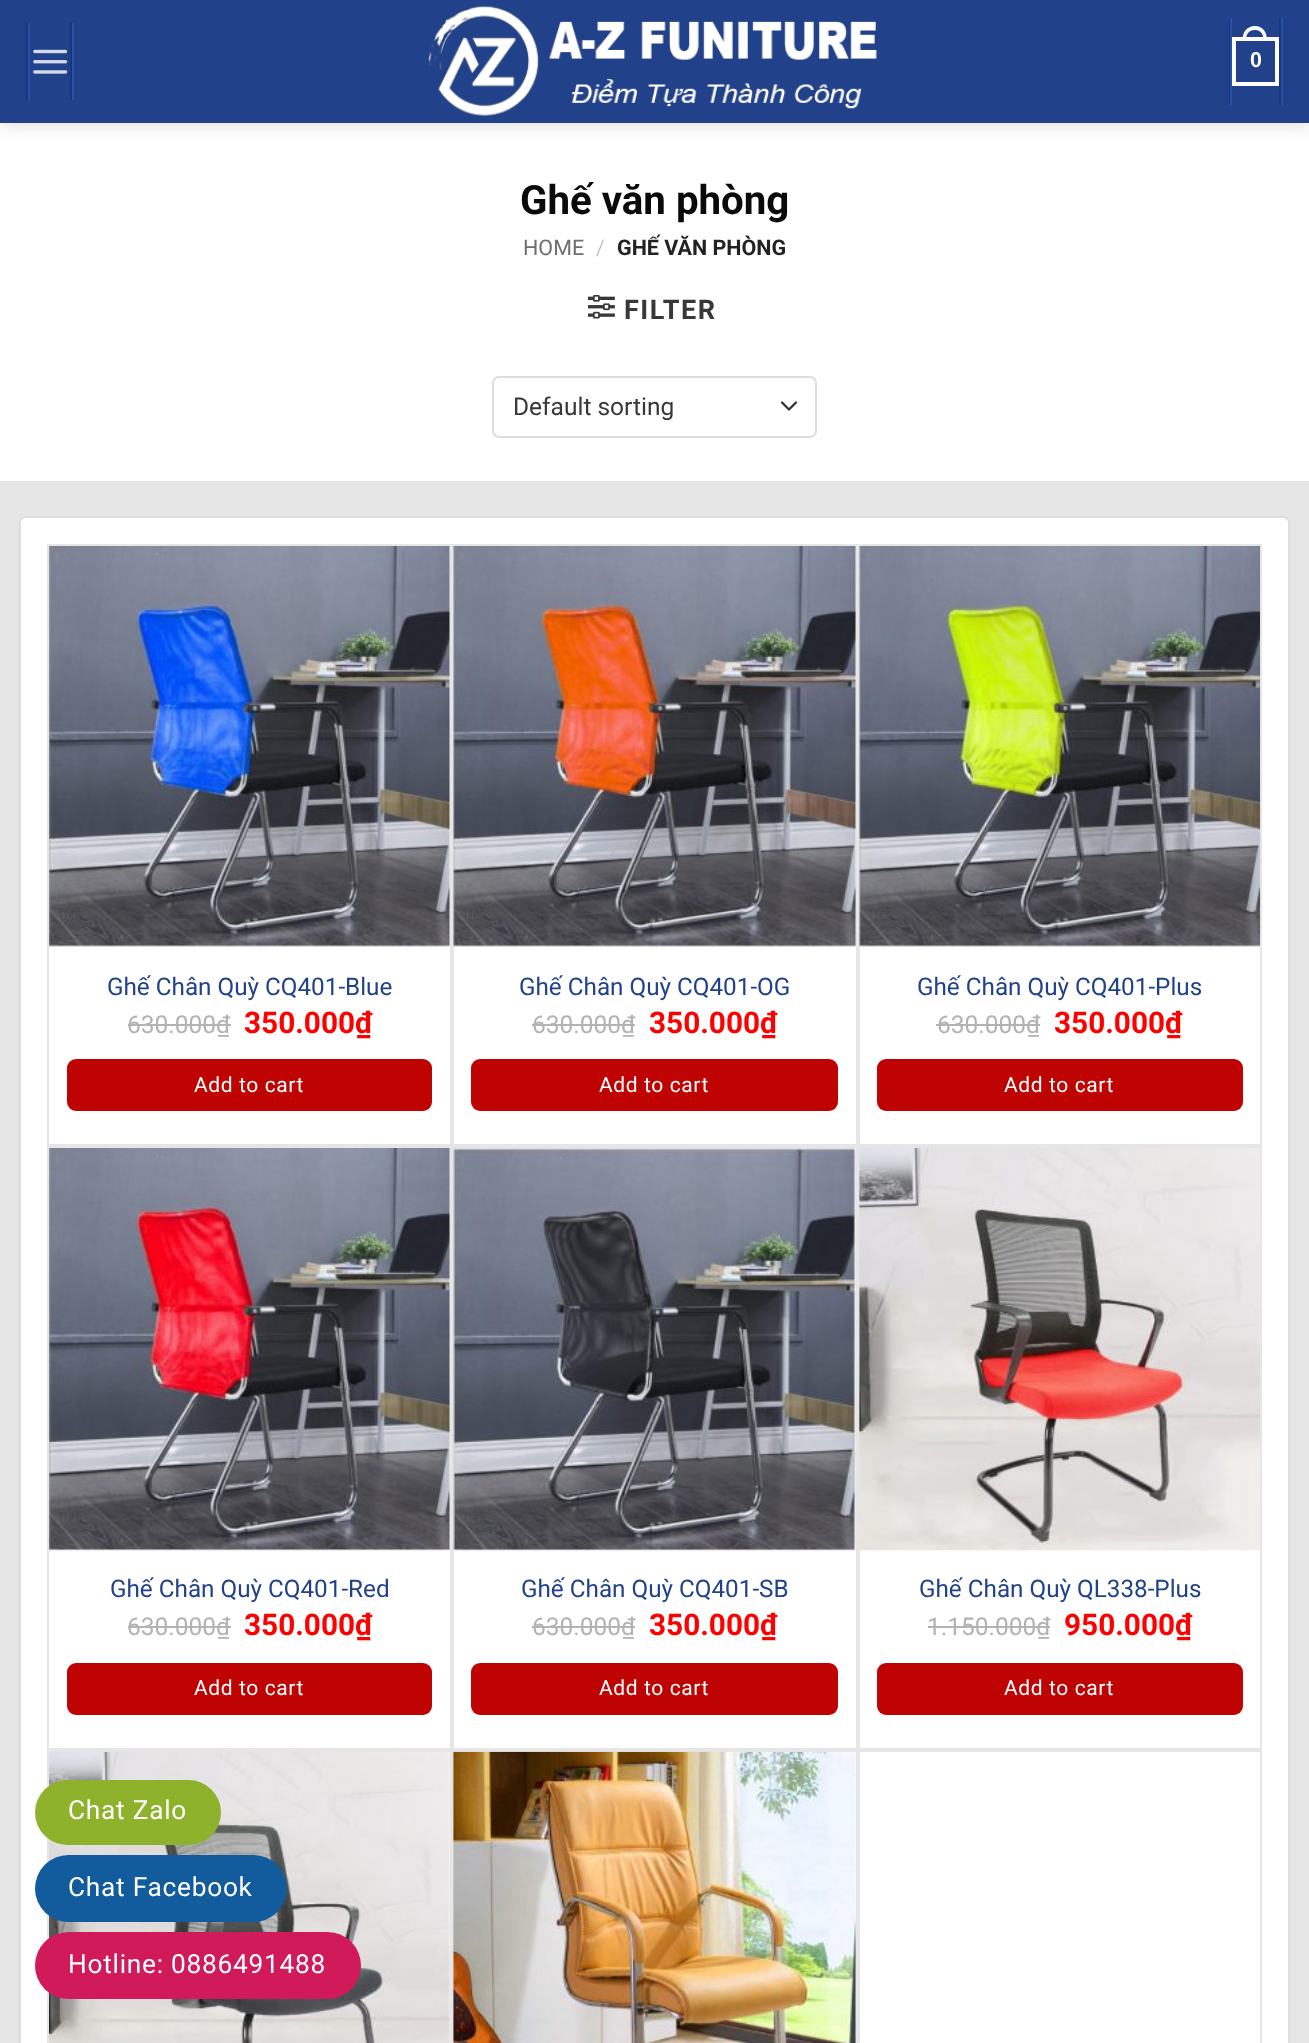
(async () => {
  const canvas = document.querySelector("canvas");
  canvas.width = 1309;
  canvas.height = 2043;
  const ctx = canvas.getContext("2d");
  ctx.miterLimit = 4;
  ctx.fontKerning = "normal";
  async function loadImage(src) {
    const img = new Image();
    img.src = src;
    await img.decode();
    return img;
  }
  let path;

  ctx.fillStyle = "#ffffff";
  ctx.fillRect(0, 0, 1309, 2043);
  ctx.fillStyle = "rgba(0, 0, 0, 0.15)";
  ctx.filter = "blur(9px)";
  ctx.beginPath();
  ctx.rect(2, 2, 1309, 122);
  ctx.fill();
  ctx.filter = "none";
  for (const [x, y, w, h, color] of [
    [0, 0, 1309, 123, "#21428a"],
    [72, 23, 2, 77, "#2951a7"],
    [26, 23, 2, 77, "#18377b"],
    [70, 23, 2, 77, "#18377b"],
    [28, 23, 2, 77, "#2951a7"],
  ]) {
    ctx.fillStyle = color;
    ctx.fillRect(x, y, w, h);
  }
  ctx.drawImage(await loadImage("img/1.png"), 33, 49, 35, 25);
  ctx.drawImage(await loadImage("img/2.png"), 428, 5, 449, 111);
  for (const [x, y, w, h, color] of [
    [1281, 18, 2, 87, "#2951a7"],
    [1229, 18, 1, 87, "#18377b"],
    [1279, 18, 2, 87, "#18377b"],
    [1230, 18, 2, 87, "#2951a7"],
  ]) {
    ctx.fillStyle = color;
    ctx.fillRect(x, y, w, h);
  }
  ctx.strokeStyle = "#ffffff";
  ctx.lineWidth = 4;
  ctx.strokeRect(1234, 39, 43, 45);
  ctx.fillStyle = "#ffffff";
  path = new Path2D("M1255 26C1263 26 1267 32.5 1267 40H1242.5C1242.5 32.5 1246.5 26 1255 26ZM1255 30C1261 30 1263.5 34.5 1263.5 40H1246C1246 34.5 1248.5 30 1255 30Z");
  ctx.fill(path, "evenodd");
  ctx.drawImage(await loadImage("img/3.png"), 588, 295, 27, 24);
  path = new Path2D("M782 402.5L789 409.5L796 402.5");
  ctx.strokeStyle = "#333333";
  ctx.lineWidth = 2.3;
  ctx.lineCap = "round";
  ctx.lineJoin = "round";
  ctx.stroke(path);
  ctx.beginPath();
  ctx.roundRect(493, 377, 323, 60, 6);
  ctx.strokeStyle = "#dddddd";
  ctx.lineWidth = 2;
  ctx.lineJoin = "miter";
  ctx.stroke();
  ctx.fillStyle = "#e6e6e6";
  ctx.fillRect(0, 481, 1309, 1562);
  ctx.fillStyle = "#ffffff";
  ctx.beginPath();
  ctx.roundRect(20, 517, 1269, 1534, 6);
  ctx.fill();
  ctx.strokeStyle = "#dedede";
  ctx.stroke();
  ctx.strokeStyle = "#e6e6e6";
  ctx.strokeRect(48, 545, 403, 600);
  ctx.drawImage(await loadImage("img/4.png"), 49, 546, 401, 401);
  ctx.fillStyle = "#bf0303";
  ctx.beginPath();
  ctx.roundRect(67, 1059, 365, 52, 9);
  ctx.fill();
  ctx.strokeRect(453, 545, 404, 600);
  ctx.drawImage(await loadImage("img/5.png"), 453, 546, 403, 401);
  ctx.beginPath();
  ctx.roundRect(471, 1059, 367, 52, 9);
  ctx.fill();
  ctx.strokeRect(859, 545, 402, 600);
  ctx.drawImage(await loadImage("img/6.png"), 859, 546, 401, 401);
  ctx.beginPath();
  ctx.roundRect(877, 1059, 366, 52, 9);
  ctx.fill();
  ctx.strokeRect(48, 1147, 403, 602);
  ctx.drawImage(await loadImage("img/7.png"), 49, 1148, 401, 403);
  ctx.beginPath();
  ctx.roundRect(67, 1663, 365, 52, 9);
  ctx.fill();
  ctx.strokeRect(453, 1147, 404, 602);
  ctx.drawImage(await loadImage("img/8.png"), 453, 1148, 403, 403);
  ctx.beginPath();
  ctx.roundRect(471, 1663, 367, 52, 9);
  ctx.fill();
  ctx.strokeRect(859, 1147, 402, 602);
  ctx.drawImage(await loadImage("img/9.png"), 859, 1148, 401, 403);
  ctx.beginPath();
  ctx.roundRect(877, 1663, 366, 52, 9);
  ctx.fill();
  ctx.strokeRect(48, 1751, 403, 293);
  ctx.drawImage(await loadImage("img/10.png"), 49, 1751, 401, 292);
  ctx.strokeRect(453, 1751, 404, 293);
  ctx.drawImage(await loadImage("img/11.png"), 453, 1751, 403, 292);
  ctx.strokeRect(859, 1751, 402, 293);
  ctx.fillStyle = "#8eb22b";
  ctx.beginPath();
  ctx.roundRect(35, 1780, 186, 65, 32.5);
  ctx.fill();
  ctx.fillStyle = "#125c9e";
  ctx.beginPath();
  ctx.roundRect(35, 1855, 252, 67, 33.5);
  ctx.fill();
  ctx.fillStyle = "#d11a59";
  ctx.beginPath();
  ctx.roundRect(35, 1932, 326, 67, 33.5);
  ctx.fill();
  ctx.font = "bold 21.5px Liberation Sans";
  ctx.fillStyle = "#ffffff";
  ctx.fillText("0", 1250, 67);
  ctx.font = "bold 40.25px Roboto";
  ctx.fillStyle = "#0a0a0a";
  ctx.fillText("Ghế văn phòng", 520, 214);
  ctx.font = "21.5px Roboto";
  ctx.fillStyle = "#6e6e6e";
  ctx.fillText("HOME", 523, 255);
  ctx.font = "300 21.5px Roboto";
  ctx.fillStyle = "#b2b2b2";
  ctx.fillText("/", 596, 255);
  ctx.font = "bold 21.5px Roboto";
  ctx.fillStyle = "#222222";
  ctx.fillText("GHẾ VĂN PHÒNG", 617, 255);
  ctx.letterSpacing = "1.5px";
  ctx.font = "bold 27px Roboto";
  ctx.fillStyle = "#383838";
  ctx.fillText("FILTER", 624, 319);
  ctx.letterSpacing = "0px";
  ctx.font = "24.5px Roboto";
  ctx.fillText("Default sorting", 513, 415);
  ctx.font = "24.25px Roboto";
  ctx.fillStyle = "#21428a";
  ctx.fillText("Ghế Chân Quỳ CQ401-Blue", 107, 995);
  ctx.font = "24.5px Roboto";
  ctx.fillStyle = "#b2b2b2";
  ctx.fillText("630.000₫", 127, 1033);
  ctx.fillStyle = "#b3b3b3";
  ctx.fillRect(128, 1024, 103, 2);
  ctx.font = "bold 29.75px Roboto";
  ctx.fillStyle = "#ff0000";
  ctx.fillText("350.000₫", 244, 1033);
  ctx.letterSpacing = "0.6px";
  ctx.font = "21px Roboto";
  ctx.fillStyle = "#ffffff";
  ctx.fillText("Add to cart", 194, 1092);
  ctx.letterSpacing = "0px";
  ctx.font = "24.25px Roboto";
  ctx.fillStyle = "#21428a";
  ctx.fillText("Ghế Chân Quỳ CQ401-OG", 519, 995);
  ctx.font = "24.5px Roboto";
  ctx.fillStyle = "#b2b2b2";
  ctx.fillText("630.000₫", 532, 1033);
  ctx.fillStyle = "#b3b3b3";
  ctx.fillRect(532, 1024, 103, 2);
  ctx.font = "bold 29.75px Roboto";
  ctx.fillStyle = "#ff0000";
  ctx.fillText("350.000₫", 649, 1033);
  ctx.letterSpacing = "0.6px";
  ctx.font = "21px Roboto";
  ctx.fillStyle = "#ffffff";
  ctx.fillText("Add to cart", 599, 1092);
  ctx.letterSpacing = "0px";
  ctx.font = "24.25px Roboto";
  ctx.fillStyle = "#21428a";
  ctx.fillText("Ghế Chân Quỳ CQ401-Plus", 917, 995);
  ctx.font = "24.5px Roboto";
  ctx.fillStyle = "#b2b2b2";
  ctx.fillText("630.000₫", 937, 1033);
  ctx.fillStyle = "#b3b3b3";
  ctx.fillRect(936, 1024, 104, 2);
  ctx.font = "bold 29.75px Roboto";
  ctx.fillStyle = "#ff0000";
  ctx.fillText("350.000₫", 1054, 1033);
  ctx.letterSpacing = "0.6px";
  ctx.font = "21px Roboto";
  ctx.fillStyle = "#ffffff";
  ctx.fillText("Add to cart", 1004, 1092);
  ctx.letterSpacing = "0px";
  ctx.font = "24.25px Roboto";
  ctx.fillStyle = "#21428a";
  ctx.fillText("Ghế Chân Quỳ CQ401-Red", 110, 1597);
  ctx.font = "24.5px Roboto";
  ctx.fillStyle = "#b2b2b2";
  ctx.fillText("630.000₫", 127, 1635);
  ctx.fillStyle = "#b3b3b3";
  ctx.fillRect(128, 1626, 103, 2);
  ctx.font = "bold 29.75px Roboto";
  ctx.fillStyle = "#ff0000";
  ctx.fillText("350.000₫", 244, 1635);
  ctx.letterSpacing = "0.6px";
  ctx.font = "21px Roboto";
  ctx.fillStyle = "#ffffff";
  ctx.fillText("Add to cart", 194, 1695);
  ctx.letterSpacing = "0px";
  ctx.font = "24.25px Roboto";
  ctx.fillStyle = "#21428a";
  ctx.fillText("Ghế Chân Quỳ CQ401-SB", 521, 1597);
  ctx.font = "24.5px Roboto";
  ctx.fillStyle = "#b2b2b2";
  ctx.fillText("630.000₫", 532, 1635);
  ctx.fillStyle = "#b3b3b3";
  ctx.fillRect(532, 1626, 103, 2);
  ctx.font = "bold 29.75px Roboto";
  ctx.fillStyle = "#ff0000";
  ctx.fillText("350.000₫", 649, 1635);
  ctx.letterSpacing = "0.6px";
  ctx.font = "21px Roboto";
  ctx.fillStyle = "#ffffff";
  ctx.fillText("Add to cart", 599, 1695);
  ctx.letterSpacing = "0px";
  ctx.font = "24.25px Roboto";
  ctx.fillStyle = "#21428a";
  ctx.fillText("Ghế Chân Quỳ QL338-Plus", 919, 1597);
  ctx.font = "24.5px Roboto";
  ctx.fillStyle = "#b2b2b2";
  ctx.fillText("1.150.000₫", 927, 1635);
  ctx.fillStyle = "#b3b3b3";
  ctx.fillRect(928, 1626, 122, 2);
  ctx.font = "bold 29.75px Roboto";
  ctx.fillStyle = "#ff0000";
  ctx.fillText("950.000₫", 1064, 1635);
  ctx.letterSpacing = "0.6px";
  ctx.font = "21px Roboto";
  ctx.fillStyle = "#ffffff";
  ctx.fillText("Add to cart", 1004, 1695);
  ctx.letterSpacing = "0.75px";
  ctx.font = "26.25px Roboto";
  for (const [text, x, y] of [
    ["Chat Zalo", 68, 1819],
    ["Chat Facebook", 68, 1896],
    ["Hotline: 0886491488", 68, 1973],
  ]) {
    ctx.fillText(text, x, y);
  }
})();
